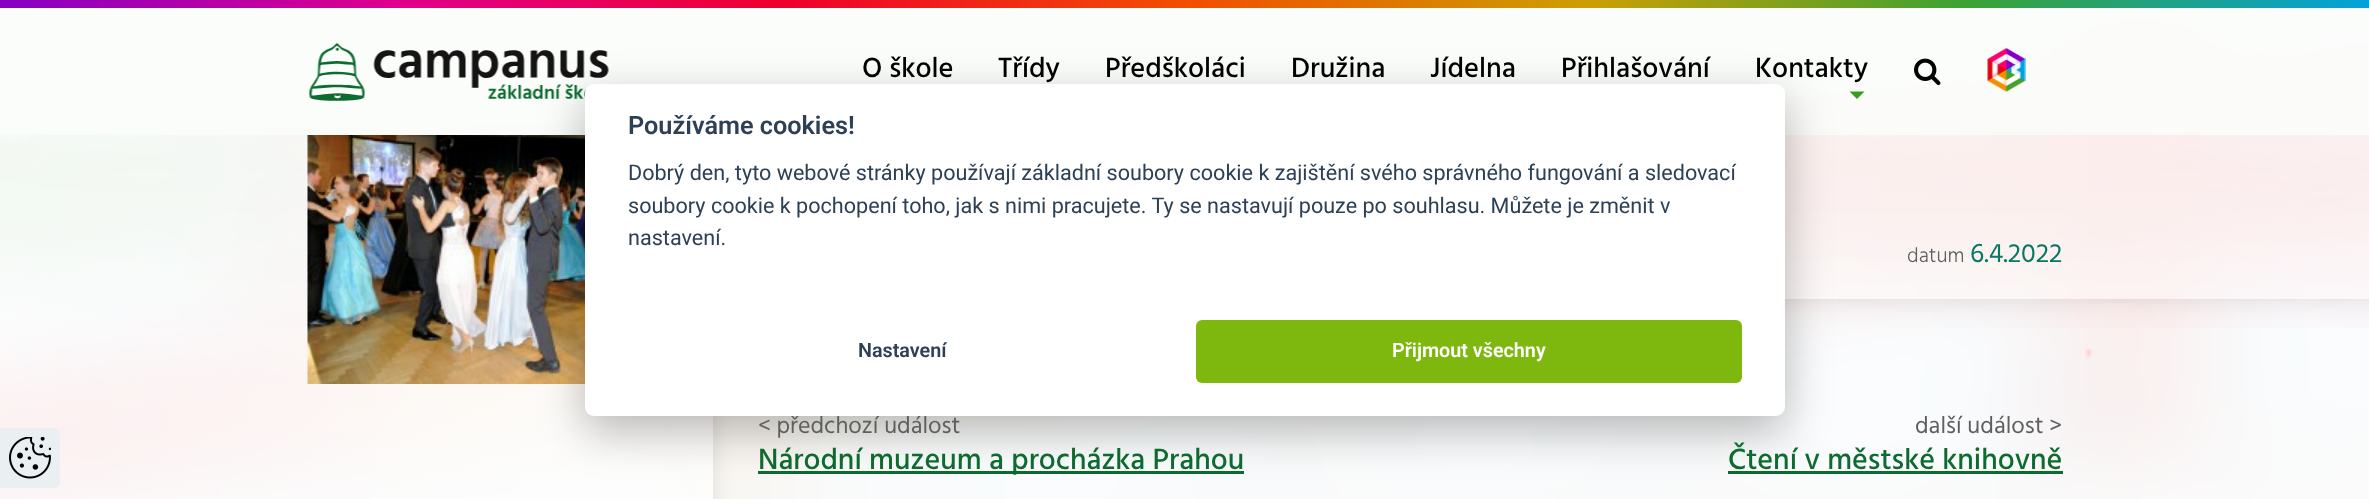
(async () => {
  const canvas = document.querySelector("canvas");
  canvas.width = 2369;
  canvas.height = 499;
  const ctx = canvas.getContext("2d");
  ctx.miterLimit = 4;
  ctx.fontKerning = "normal";
  async function loadImage(src) {
    const img = new Image();
    img.src = src;
    await img.decode();
    return img;
  }
  let gradient, path;

  ctx.fillStyle = "#ffffff";
  ctx.fillRect(0, 0, 2369, 499);
  ctx.drawImage(await loadImage("img/1.png"), 0, 8, 2369, 491);
  gradient = ctx.createLinearGradient(0, 3.8, 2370, 3.7);
  gradient.addColorStop(0, "#8600c4");
  gradient.addColorStop(0.17, "#e1008b");
  gradient.addColorStop(0.33, "#ee002c");
  gradient.addColorStop(0.5, "#f24e01");
  gradient.addColorStop(0.67, "#cc9f03");
  gradient.addColorStop(0.83, "#3ca233");
  gradient.addColorStop(1, "#02a2db");
  ctx.fillStyle = gradient;
  ctx.fillRect(0, 0, 2369, 8);
  ctx.save();
  path = new Path2D("M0 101H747V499H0ZM-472 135H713V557H-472Z");
  ctx.clip(path, "evenodd");
  ctx.fillStyle = "rgba(0, 0, 0, 0.1)";
  ctx.filter = "blur(11px)";
  ctx.beginPath();
  ctx.rect(-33, 135, 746, 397);
  ctx.fill();
  ctx.filter = "none";
  ctx.restore();
  gradient = ctx.createLinearGradient(-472, 346, 713, 346);
  gradient.addColorStop(0, "rgba(255, 255, 255, 0)");
  gradient.addColorStop(1, "rgba(255, 255, 255, 0.7)");
  ctx.fillStyle = gradient;
  ctx.fillRect(0, 135, 713, 364);
  ctx.save();
  path = new Path2D("M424 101H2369V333H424ZM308 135H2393V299H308Z");
  ctx.clip(path, "evenodd");
  ctx.fillStyle = "rgba(0, 0, 0, 0.1)";
  ctx.filter = "blur(11px)";
  ctx.beginPath();
  ctx.rect(458, 135, 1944, 164);
  ctx.fill();
  ctx.filter = "none";
  ctx.restore();
  gradient = ctx.createLinearGradient(308, 217, 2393, 217);
  gradient.addColorStop(0, "rgba(255, 255, 255, 0)");
  gradient.addColorStop(0.22, "#ffffff");
  gradient.addColorStop(1, "rgba(255, 255, 255, 0.5)");
  ctx.fillStyle = gradient;
  ctx.fillRect(1785, 135, 584, 164);
  ctx.drawImage(await loadImage("img/5.png"), 0, 8, 2369, 320);
  ctx.fillStyle = "rgba(251, 253, 251, 0.95)";
  ctx.fillRect(0, 8, 2369, 127);
  ctx.drawImage(await loadImage("img/2.png"), 308, 43, 301, 58);
  ctx.fillStyle = "#339e17";
  path = new Path2D("M1849.5 91.5H1864.5L1857 99Z");
  ctx.fill(path);
  ctx.drawImage(await loadImage("img/3.png"), 1914, 58, 27, 28);
  ctx.drawImage(await loadImage("img/4.png"), 1987, 48, 39, 44);
  ctx.drawImage(await loadImage("img/6.png"), 307, 135, 278, 249);
  ctx.fillStyle = "#0d6b2f";
  ctx.fillRect(758, 471, 486, 3);
  ctx.fillRect(1728, 471, 335, 3);
  ctx.fillStyle = "rgba(2, 2, 3, 0.28)";
  ctx.filter = "blur(22.5px)";
  ctx.beginPath();
  ctx.roundRect(585, 99, 1200, 332, 9);
  ctx.fill();
  ctx.filter = "none";
  ctx.fillStyle = "#eaeff2";
  ctx.beginPath();
  ctx.roundRect(0, 428, 60, 60, [0, 6, 6, 0]);
  ctx.fill();
  ctx.drawImage(await loadImage("img/7.png"), 9, 437, 42, 42);
  ctx.font = "500 28.5px Hind";
  ctx.fillStyle = "#000000";
  for (const [text, x, y] of [
    ["O škole", 862, 77],
    ["Třídy", 998, 77],
    ["Předškoláci", 1105, 77],
    ["Družina", 1291, 77],
    ["Jídelna", 1430, 77],
    ["Přihlašování", 1561, 77],
    ["Kontakty", 1755, 77],
  ]) {
    ctx.fillText(text, x, y);
  }
  ctx.font = "300 21px Hind";
  ctx.fillStyle = "#5f5f5f";
  ctx.fillText("datum", 1907, 262);
  ctx.font = "27px Hind";
  ctx.fillStyle = "#087763";
  ctx.fillText("6.4.2022", 1970, 262);
  ctx.font = "24px Hind";
  ctx.fillStyle = "#5f5f5f";
  ctx.fillText("< předchozí událost", 758, 433);
  ctx.font = "500 30px Hind";
  ctx.fillStyle = "#0d6b2f";
  ctx.fillText("Národní muzeum a procházka Prahou", 758, 469);
  ctx.font = "24px Hind";
  ctx.fillStyle = "#5f5f5f";
  ctx.fillText("další událost >", 1915, 433);
  ctx.font = "500 30px Hind";
  ctx.fillStyle = "#0d6b2f";
  ctx.fillText("Čtení v městské knihovně", 1728, 469);
  ctx.fillStyle = "#ffffff";
  ctx.beginPath();
  ctx.roundRect(585, 84, 1200, 332, 9);
  ctx.fill();
  ctx.font = "600 25.25px Roboto";
  ctx.fillStyle = "#2d4156";
  ctx.fillText("Používáme cookies!", 628, 134);
  ctx.font = "21.6px Roboto";
  for (const [text, x, y] of [
    ["Dobrý den, tyto webové stránky používají základní soubory cookie k zajištění svého správného fungování a sledovací", 628, 180],
    ["soubory cookie k pochopení toho, jak s nimi pracujete. Ty se nastavují pouze po souhlasu. Můžete je změnit v", 628, 213],
    ["nastavení.", 628, 245],
  ]) {
    ctx.fillText(text, x, y);
  }
  ctx.font = "600 19.75px Roboto";
  ctx.fillText("Nastavení", 858, 357);
  ctx.fillStyle = "#7eb80e";
  ctx.beginPath();
  ctx.roundRect(1196, 320, 546, 63, 6);
  ctx.fill();
  ctx.fillStyle = "#ffffff";
  ctx.fillText("Přijmout všechny", 1392, 357);
})();
